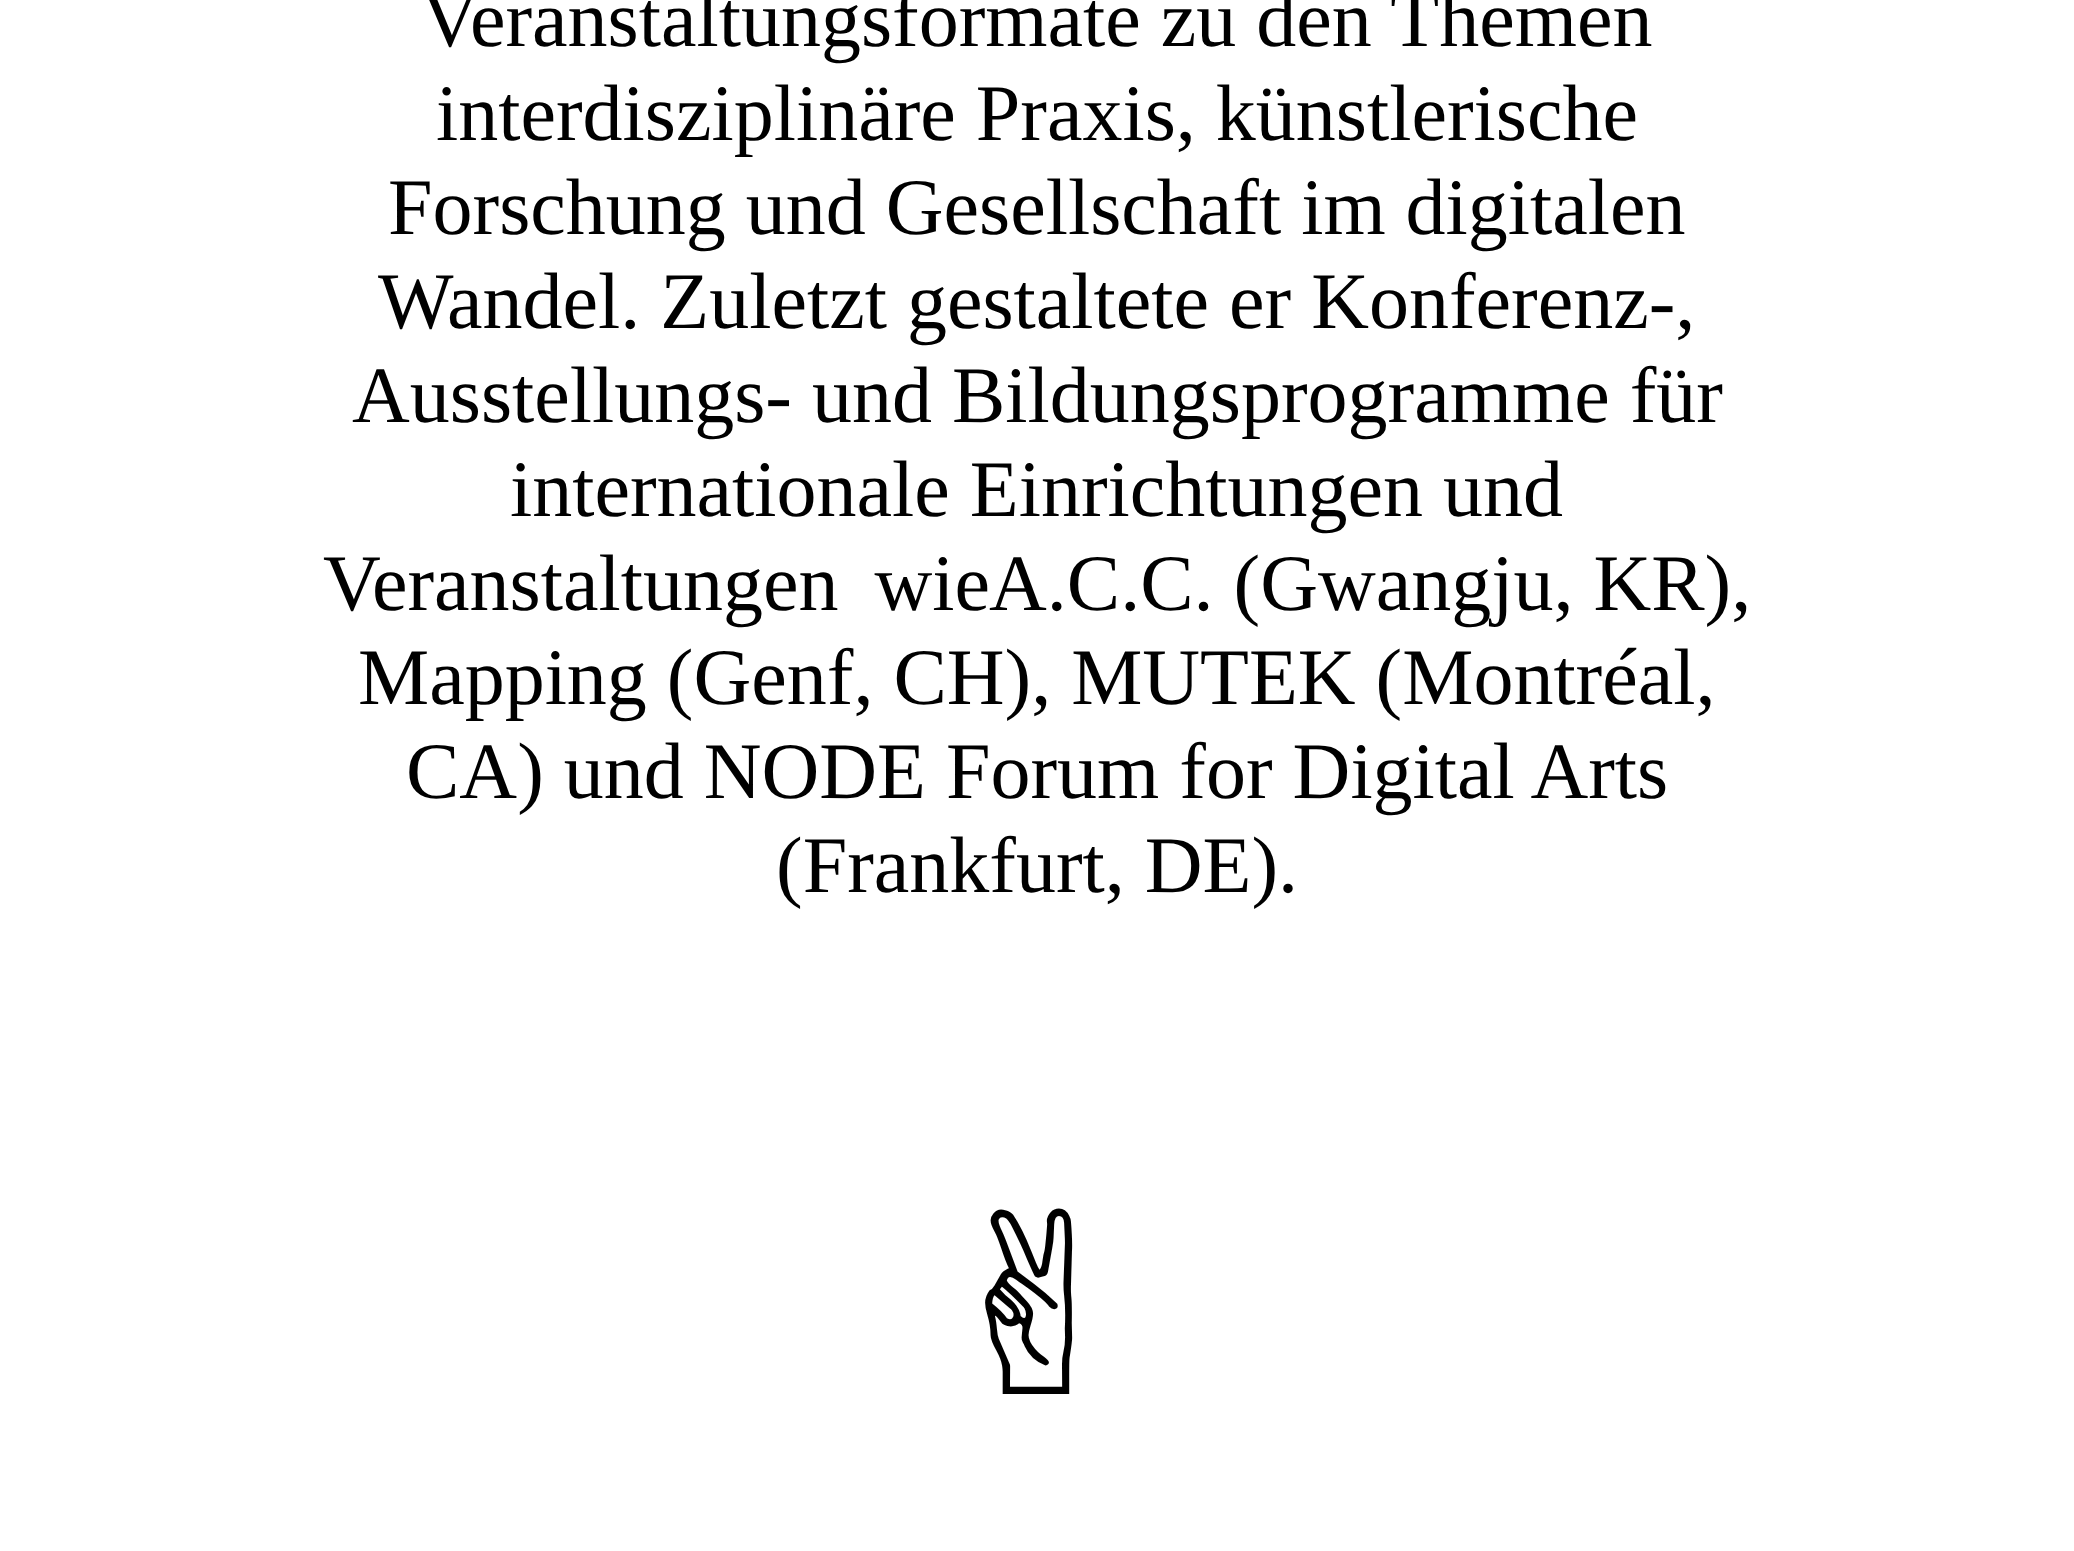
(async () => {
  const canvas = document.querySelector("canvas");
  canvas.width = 2074;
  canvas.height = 1551;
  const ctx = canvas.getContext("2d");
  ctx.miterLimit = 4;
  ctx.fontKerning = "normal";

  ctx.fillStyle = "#ffffff";
  ctx.fillRect(0, 0, 2074, 1551);
  ctx.font = "80px Liberation Serif";
  ctx.fillStyle = "#000000";
  for (const [text, x, y] of [
    ["Veranstaltungsformate zu den Themen", 421, 46],
    ["interdisziplinäre Praxis, künstlerische", 436, 140],
    ["Forschung und Gesellschaft im digitalen", 388, 234],
    ["Wandel. Zuletzt gestaltete er Konferenz-,", 378, 328],
    ["Ausstellungs- und Bildungsprogramme für", 352, 422],
    ["internationale Einrichtungen und", 510, 516],
  ]) {
    ctx.fillText(text, x, y);
  }
  ctx.wordSpacing = "16px";
  ctx.fillText("Veranstaltungen wie", 323, 610);
  ctx.wordSpacing = "0px";
  for (const [text, x, y] of [
    ["A.C.C. (Gwangju, KR),", 989, 610],
    ["Mapping (Genf, CH), MUTEK (Montréal,", 358, 704],
    ["CA) und NODE Forum for Digital Arts", 406, 798],
    ["(Frankfurt, DE).", 776, 892],
  ]) {
    ctx.fillText(text, x, y);
  }
  ctx.font = "250px DejaVu Sans";
  ctx.fillText("✌︎", 932, 1394);
})();
